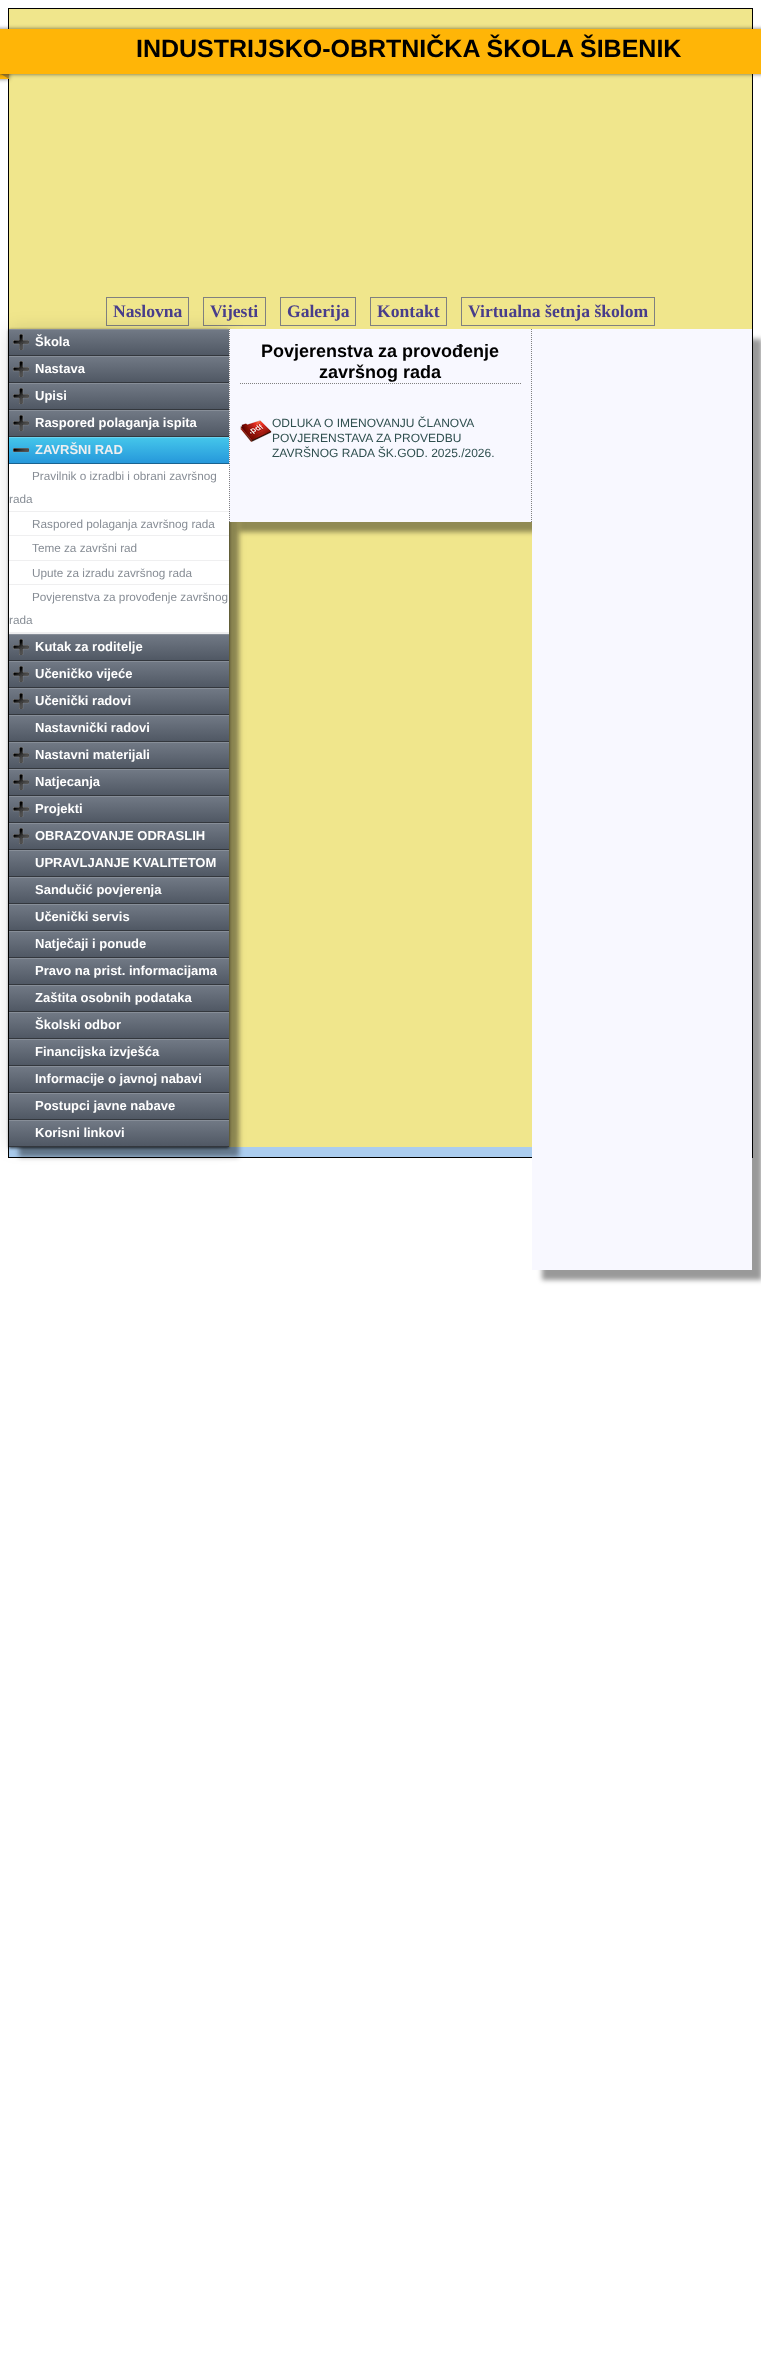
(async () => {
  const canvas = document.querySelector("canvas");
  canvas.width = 761;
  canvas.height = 2365;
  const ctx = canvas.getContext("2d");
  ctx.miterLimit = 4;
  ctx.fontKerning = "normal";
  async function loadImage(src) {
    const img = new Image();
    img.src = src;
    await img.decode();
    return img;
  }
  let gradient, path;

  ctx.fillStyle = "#ffffff";
  ctx.fillRect(0, 0, 761, 2365);
  ctx.fillStyle = "#f0e68c";
  ctx.fillRect(9, 9, 743, 1138);
  ctx.strokeStyle = "#000000";
  ctx.strokeRect(8.5, 8.5, 744, 1149);
  ctx.fillStyle = "rgba(0, 0, 0, 0.55)";
  ctx.filter = "blur(2px)";
  ctx.beginPath();
  ctx.rect(-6, 44, 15, 35);
  ctx.fill();
  ctx.filter = "none";
  ctx.fillStyle = "#ffb507";
  ctx.fillRect(0, 74, 9, 5);
  ctx.fillStyle = "#ac862e";
  path = new Path2D("M9 64V79L-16 64Z");
  ctx.fill(path);
  ctx.fillStyle = "rgba(0, 0, 0, 0.55)";
  ctx.filter = "blur(2px)";
  ctx.beginPath();
  ctx.rect(-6, 29, 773, 45);
  ctx.fill();
  ctx.filter = "none";
  ctx.fillStyle = "#ffb507";
  ctx.fillRect(0, 29, 761, 45);
  ctx.strokeStyle = "#808080";
  ctx.strokeRect(106.5, 297.5, 82, 28);
  ctx.strokeRect(203.5, 297.5, 62, 28);
  ctx.strokeRect(280.5, 297.5, 75, 28);
  ctx.strokeRect(370.5, 297.5, 76, 28);
  ctx.strokeRect(461.5, 297.5, 193, 28);
  ctx.fillStyle = "#abcdef";
  ctx.fillRect(9, 1147, 523, 10);
  ctx.fillStyle = "rgba(0, 0, 0, 0.4)";
  ctx.filter = "blur(2.5px)";
  ctx.beginPath();
  ctx.rect(19, 339, 220, 818);
  ctx.fill();
  ctx.filter = "none";
  ctx.fillStyle = "rgba(0, 0, 0, 0.13)";
  ctx.filter = "blur(9px)";
  ctx.beginPath();
  ctx.rect(9, 329, 220, 818);
  ctx.fill();
  ctx.filter = "none";
  ctx.fillStyle = "rgba(0, 0, 0, 0.73)";
  ctx.filter = "blur(1.5px)";
  ctx.beginPath();
  ctx.rect(9, 330, 220, 818);
  ctx.fill();
  ctx.filter = "none";
  gradient = ctx.createLinearGradient(119, 329, 119, 355);
  gradient.addColorStop(0, "#727a86");
  gradient.addColorStop(1, "#505864");
  ctx.fillStyle = gradient;
  ctx.fillRect(9, 330, 220, 25);
  ctx.fillStyle = "#878e98";
  ctx.fillRect(9, 329, 220, 1);
  ctx.fillStyle = "#33373d";
  ctx.fillRect(9, 355, 220, 1);
  ctx.drawImage(await loadImage("img/1.png"), 13, 334, 16, 16);
  gradient = ctx.createLinearGradient(119, 356, 119, 382);
  gradient.addColorStop(0, "#727a86");
  gradient.addColorStop(1, "#505864");
  ctx.fillStyle = gradient;
  ctx.fillRect(9, 357, 220, 25);
  ctx.fillStyle = "#878e98";
  ctx.fillRect(9, 356, 220, 1);
  ctx.fillStyle = "#33373d";
  ctx.fillRect(9, 382, 220, 1);
  ctx.drawImage(await loadImage("img/1.png"), 13, 361, 16, 16);
  gradient = ctx.createLinearGradient(119, 383, 119, 409);
  gradient.addColorStop(0, "#727a86");
  gradient.addColorStop(1, "#505864");
  ctx.fillStyle = gradient;
  ctx.fillRect(9, 384, 220, 25);
  ctx.fillStyle = "#878e98";
  ctx.fillRect(9, 383, 220, 1);
  ctx.fillStyle = "#33373d";
  ctx.fillRect(9, 409, 220, 1);
  ctx.drawImage(await loadImage("img/1.png"), 13, 388, 16, 16);
  gradient = ctx.createLinearGradient(119, 410, 119, 436);
  gradient.addColorStop(0, "#727a86");
  gradient.addColorStop(1, "#505864");
  ctx.fillStyle = gradient;
  ctx.fillRect(9, 411, 220, 25);
  ctx.fillStyle = "#878e98";
  ctx.fillRect(9, 410, 220, 1);
  ctx.fillStyle = "#33373d";
  ctx.fillRect(9, 436, 220, 1);
  ctx.drawImage(await loadImage("img/1.png"), 13, 415, 16, 16);
  gradient = ctx.createLinearGradient(119, 437, 119, 463);
  gradient.addColorStop(0, "#45c7eb");
  gradient.addColorStop(1, "#2698db");
  ctx.fillStyle = gradient;
  ctx.fillRect(9, 438, 220, 25);
  ctx.fillStyle = "#6ad2ef";
  ctx.fillRect(9, 437, 220, 1);
  ctx.fillStyle = "#1a638f";
  ctx.fillRect(9, 463, 220, 1);
  ctx.drawImage(await loadImage("img/2.png"), 13, 448, 16, 5);
  for (const [x, y, w, h, color] of [
    [9, 464, 220, 47, "#ffffff"],
    [9, 511, 220, 1, "#efeff0"],
    [9, 512, 220, 23, "#ffffff"],
    [9, 535, 220, 1, "#efeff0"],
    [9, 536, 220, 24, "#ffffff"],
    [9, 560, 220, 1, "#efeff0"],
    [9, 561, 220, 23, "#ffffff"],
    [9, 584, 220, 1, "#efeff0"],
    [9, 585, 220, 47, "#ffffff"],
    [9, 632, 220, 2, "#efeff0"],
  ]) {
    ctx.fillStyle = color;
    ctx.fillRect(x, y, w, h);
  }
  gradient = ctx.createLinearGradient(119, 634, 119, 660);
  gradient.addColorStop(0, "#727a86");
  gradient.addColorStop(1, "#505864");
  ctx.fillStyle = gradient;
  ctx.fillRect(9, 635, 220, 25);
  ctx.fillStyle = "#878e98";
  ctx.fillRect(9, 634, 220, 1);
  ctx.fillStyle = "#33373d";
  ctx.fillRect(9, 660, 220, 1);
  ctx.drawImage(await loadImage("img/1.png"), 13, 639, 16, 16);
  gradient = ctx.createLinearGradient(119, 661, 119, 687);
  gradient.addColorStop(0, "#727a86");
  gradient.addColorStop(1, "#505864");
  ctx.fillStyle = gradient;
  ctx.fillRect(9, 662, 220, 25);
  ctx.fillStyle = "#878e98";
  ctx.fillRect(9, 661, 220, 1);
  ctx.fillStyle = "#33373d";
  ctx.fillRect(9, 687, 220, 1);
  ctx.drawImage(await loadImage("img/1.png"), 13, 666, 16, 16);
  gradient = ctx.createLinearGradient(119, 688, 119, 714);
  gradient.addColorStop(0, "#727a86");
  gradient.addColorStop(1, "#505864");
  ctx.fillStyle = gradient;
  ctx.fillRect(9, 689, 220, 25);
  ctx.fillStyle = "#878e98";
  ctx.fillRect(9, 688, 220, 1);
  ctx.fillStyle = "#33373d";
  ctx.fillRect(9, 714, 220, 1);
  ctx.drawImage(await loadImage("img/1.png"), 13, 693, 16, 16);
  gradient = ctx.createLinearGradient(119, 715, 119, 741);
  gradient.addColorStop(0, "#727a86");
  gradient.addColorStop(1, "#505864");
  ctx.fillStyle = gradient;
  ctx.fillRect(9, 716, 220, 25);
  ctx.fillStyle = "#878e98";
  ctx.fillRect(9, 715, 220, 1);
  ctx.fillStyle = "#33373d";
  ctx.fillRect(9, 741, 220, 1);
  gradient = ctx.createLinearGradient(119, 742, 119, 768);
  gradient.addColorStop(0, "#727a86");
  gradient.addColorStop(1, "#505864");
  ctx.fillStyle = gradient;
  ctx.fillRect(9, 743, 220, 25);
  ctx.fillStyle = "#878e98";
  ctx.fillRect(9, 742, 220, 1);
  ctx.fillStyle = "#33373d";
  ctx.fillRect(9, 768, 220, 1);
  ctx.drawImage(await loadImage("img/1.png"), 13, 747, 16, 16);
  gradient = ctx.createLinearGradient(119, 769, 119, 795);
  gradient.addColorStop(0, "#727a86");
  gradient.addColorStop(1, "#505864");
  ctx.fillStyle = gradient;
  ctx.fillRect(9, 770, 220, 25);
  ctx.fillStyle = "#878e98";
  ctx.fillRect(9, 769, 220, 1);
  ctx.fillStyle = "#33373d";
  ctx.fillRect(9, 795, 220, 1);
  ctx.drawImage(await loadImage("img/1.png"), 13, 774, 16, 16);
  gradient = ctx.createLinearGradient(119, 796, 119, 822);
  gradient.addColorStop(0, "#727a86");
  gradient.addColorStop(1, "#505864");
  ctx.fillStyle = gradient;
  ctx.fillRect(9, 797, 220, 25);
  ctx.fillStyle = "#878e98";
  ctx.fillRect(9, 796, 220, 1);
  ctx.fillStyle = "#33373d";
  ctx.fillRect(9, 822, 220, 1);
  ctx.drawImage(await loadImage("img/1.png"), 13, 801, 16, 16);
  gradient = ctx.createLinearGradient(119, 823, 119, 849);
  gradient.addColorStop(0, "#727a86");
  gradient.addColorStop(1, "#505864");
  ctx.fillStyle = gradient;
  ctx.fillRect(9, 824, 220, 25);
  ctx.fillStyle = "#878e98";
  ctx.fillRect(9, 823, 220, 1);
  ctx.fillStyle = "#33373d";
  ctx.fillRect(9, 849, 220, 1);
  ctx.drawImage(await loadImage("img/1.png"), 13, 828, 16, 16);
  gradient = ctx.createLinearGradient(119, 850, 119, 876);
  gradient.addColorStop(0, "#727a86");
  gradient.addColorStop(1, "#505864");
  ctx.fillStyle = gradient;
  ctx.fillRect(9, 851, 220, 25);
  ctx.fillStyle = "#878e98";
  ctx.fillRect(9, 850, 220, 1);
  ctx.fillStyle = "#33373d";
  ctx.fillRect(9, 876, 220, 1);
  gradient = ctx.createLinearGradient(119, 877, 119, 903);
  gradient.addColorStop(0, "#727a86");
  gradient.addColorStop(1, "#505864");
  ctx.fillStyle = gradient;
  ctx.fillRect(9, 878, 220, 25);
  ctx.fillStyle = "#878e98";
  ctx.fillRect(9, 877, 220, 1);
  ctx.fillStyle = "#33373d";
  ctx.fillRect(9, 903, 220, 1);
  gradient = ctx.createLinearGradient(119, 904, 119, 930);
  gradient.addColorStop(0, "#727a86");
  gradient.addColorStop(1, "#505864");
  ctx.fillStyle = gradient;
  ctx.fillRect(9, 905, 220, 25);
  ctx.fillStyle = "#878e98";
  ctx.fillRect(9, 904, 220, 1);
  ctx.fillStyle = "#33373d";
  ctx.fillRect(9, 930, 220, 1);
  gradient = ctx.createLinearGradient(119, 931, 119, 957);
  gradient.addColorStop(0, "#727a86");
  gradient.addColorStop(1, "#505864");
  ctx.fillStyle = gradient;
  ctx.fillRect(9, 932, 220, 25);
  ctx.fillStyle = "#878e98";
  ctx.fillRect(9, 931, 220, 1);
  ctx.fillStyle = "#33373d";
  ctx.fillRect(9, 957, 220, 1);
  gradient = ctx.createLinearGradient(119, 958, 119, 984);
  gradient.addColorStop(0, "#727a86");
  gradient.addColorStop(1, "#505864");
  ctx.fillStyle = gradient;
  ctx.fillRect(9, 959, 220, 25);
  ctx.fillStyle = "#878e98";
  ctx.fillRect(9, 958, 220, 1);
  ctx.fillStyle = "#33373d";
  ctx.fillRect(9, 984, 220, 1);
  gradient = ctx.createLinearGradient(119, 985, 119, 1011);
  gradient.addColorStop(0, "#727a86");
  gradient.addColorStop(1, "#505864");
  ctx.fillStyle = gradient;
  ctx.fillRect(9, 986, 220, 25);
  ctx.fillStyle = "#878e98";
  ctx.fillRect(9, 985, 220, 1);
  ctx.fillStyle = "#33373d";
  ctx.fillRect(9, 1011, 220, 1);
  gradient = ctx.createLinearGradient(119, 1012, 119, 1038);
  gradient.addColorStop(0, "#727a86");
  gradient.addColorStop(1, "#505864");
  ctx.fillStyle = gradient;
  ctx.fillRect(9, 1013, 220, 25);
  ctx.fillStyle = "#878e98";
  ctx.fillRect(9, 1012, 220, 1);
  ctx.fillStyle = "#33373d";
  ctx.fillRect(9, 1038, 220, 1);
  gradient = ctx.createLinearGradient(119, 1039, 119, 1065);
  gradient.addColorStop(0, "#727a86");
  gradient.addColorStop(1, "#505864");
  ctx.fillStyle = gradient;
  ctx.fillRect(9, 1040, 220, 25);
  ctx.fillStyle = "#878e98";
  ctx.fillRect(9, 1039, 220, 1);
  ctx.fillStyle = "#33373d";
  ctx.fillRect(9, 1065, 220, 1);
  gradient = ctx.createLinearGradient(119, 1066, 119, 1092);
  gradient.addColorStop(0, "#727a86");
  gradient.addColorStop(1, "#505864");
  ctx.fillStyle = gradient;
  ctx.fillRect(9, 1067, 220, 25);
  ctx.fillStyle = "#878e98";
  ctx.fillRect(9, 1066, 220, 1);
  ctx.fillStyle = "#33373d";
  ctx.fillRect(9, 1092, 220, 1);
  gradient = ctx.createLinearGradient(119, 1093, 119, 1119);
  gradient.addColorStop(0, "#727a86");
  gradient.addColorStop(1, "#505864");
  ctx.fillStyle = gradient;
  ctx.fillRect(9, 1094, 220, 25);
  ctx.fillStyle = "#878e98";
  ctx.fillRect(9, 1093, 220, 1);
  ctx.fillStyle = "#33373d";
  ctx.fillRect(9, 1119, 220, 1);
  gradient = ctx.createLinearGradient(119, 1120, 119, 1146);
  gradient.addColorStop(0, "#727a86");
  gradient.addColorStop(1, "#505864");
  ctx.fillStyle = gradient;
  ctx.fillRect(9, 1121, 220, 25);
  ctx.fillStyle = "#878e98";
  ctx.fillRect(9, 1120, 220, 1);
  ctx.fillStyle = "#33373d";
  ctx.fillRect(9, 1146, 220, 1);
  ctx.fillStyle = "rgba(0, 0, 0, 0.4)";
  ctx.filter = "blur(2.5px)";
  ctx.beginPath();
  ctx.rect(239, 339, 303, 193);
  ctx.fill();
  ctx.filter = "none";
  ctx.fillStyle = "#f8f8ff";
  ctx.fillRect(229, 329, 303, 193);
  path = new Path2D("M531.5 329V522");
  ctx.setLineDash([1, 1]);
  ctx.stroke(path);
  path = new Path2D("M229.5 329V522");
  ctx.stroke(path);
  path = new Path2D("M240 383.5H521");
  ctx.stroke(path);
  ctx.drawImage(await loadImage("img/3.png"), 240, 420, 32, 22);
  ctx.fillStyle = "rgba(0, 0, 0, 0.4)";
  ctx.filter = "blur(2.5px)";
  ctx.beginPath();
  ctx.rect(542, 339, 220, 941);
  ctx.fill();
  ctx.filter = "none";
  ctx.fillStyle = "#f8f8ff";
  ctx.fillRect(532, 329, 220, 941);
  ctx.font = "bold 25px Liberation Sans";
  ctx.fillStyle = "#000000";
  ctx.fillText("INDUSTRIJSKO-OBRTNIČKA ŠKOLA ŠIBENIK", 136, 57);
  ctx.font = "bold 17.6px Liberation Serif";
  ctx.fillStyle = "#483d8b";
  for (const [text, x, y] of [
    ["Naslovna", 113, 317],
    ["Vijesti", 210, 317],
    ["Galerija", 287, 317],
    ["Kontakt", 377, 317],
    ["Virtualna šetnja školom", 468, 317],
  ]) {
    ctx.fillText(text, x, y);
  }
  ctx.font = "bold 13px Liberation Sans";
  ctx.fillStyle = "#ffffff";
  for (const [text, x, y] of [
    ["Škola", 35, 346],
    ["Nastava", 35, 373],
    ["Upisi", 35, 400],
    ["Raspored polaganja ispita", 35, 427],
  ]) {
    ctx.fillText(text, x, y);
  }
  ctx.fillStyle = "#efeff0";
  ctx.fillText("ZAVRŠNI RAD", 35, 454);
  ctx.font = "11.75px Liberation Sans";
  ctx.fillStyle = "#878d95";
  for (const [text, x, y] of [
    ["Pravilnik o izradbi i obrani završnog", 32, 480],
    ["rada", 9, 503],
    ["Raspored polaganja završnog rada", 32, 528],
    ["Teme za završni rad", 32, 552],
    ["Upute za izradu završnog rada", 32, 577],
    ["Povjerenstva za provođenje završnog", 32, 601],
    ["rada", 9, 624],
  ]) {
    ctx.fillText(text, x, y);
  }
  ctx.font = "bold 13px Liberation Sans";
  ctx.fillStyle = "#ffffff";
  for (const [text, x, y] of [
    ["Kutak za roditelje", 35, 651],
    ["Učeničko vijeće", 35, 678],
    ["Učenički radovi", 35, 705],
    ["Nastavnički radovi", 35, 732],
    ["Nastavni materijali", 35, 759],
    ["Natjecanja", 35, 786],
    ["Projekti", 35, 813],
    ["OBRAZOVANJE ODRASLIH", 35, 840],
    ["UPRAVLJANJE KVALITETOM", 35, 867],
    ["Sandučić povjerenja", 35, 894],
    ["Učenički servis", 35, 921],
    ["Natječaji i ponude", 35, 948],
    ["Pravo na prist. informacijama", 35, 975],
    ["Zaštita osobnih podataka", 35, 1002],
    ["Školski odbor", 35, 1029],
    ["Financijska izvješća", 35, 1056],
    ["Informacije o javnoj nabavi", 35, 1083],
    ["Postupci javne nabave", 35, 1110],
    ["Korisni linkovi", 35, 1137],
  ]) {
    ctx.fillText(text, x, y);
  }
  ctx.font = "bold 18px Liberation Sans";
  ctx.fillStyle = "#000000";
  ctx.fillText("Povjerenstva za provođenje", 261, 357);
  ctx.fillText("završnog rada", 319, 378);
  ctx.font = "12px Liberation Sans";
  ctx.fillStyle = "#2f4f4f";
  for (const [text, x, y] of [
    ["ODLUKA O IMENOVANJU ČLANOVA", 272, 427],
    ["POVJERENSTAVA ZA PROVEDBU", 272, 442],
    ["ZAVRŠNOG RADA ŠK.GOD. 2025./2026.", 272, 457],
  ]) {
    ctx.fillText(text, x, y);
  }
})();
